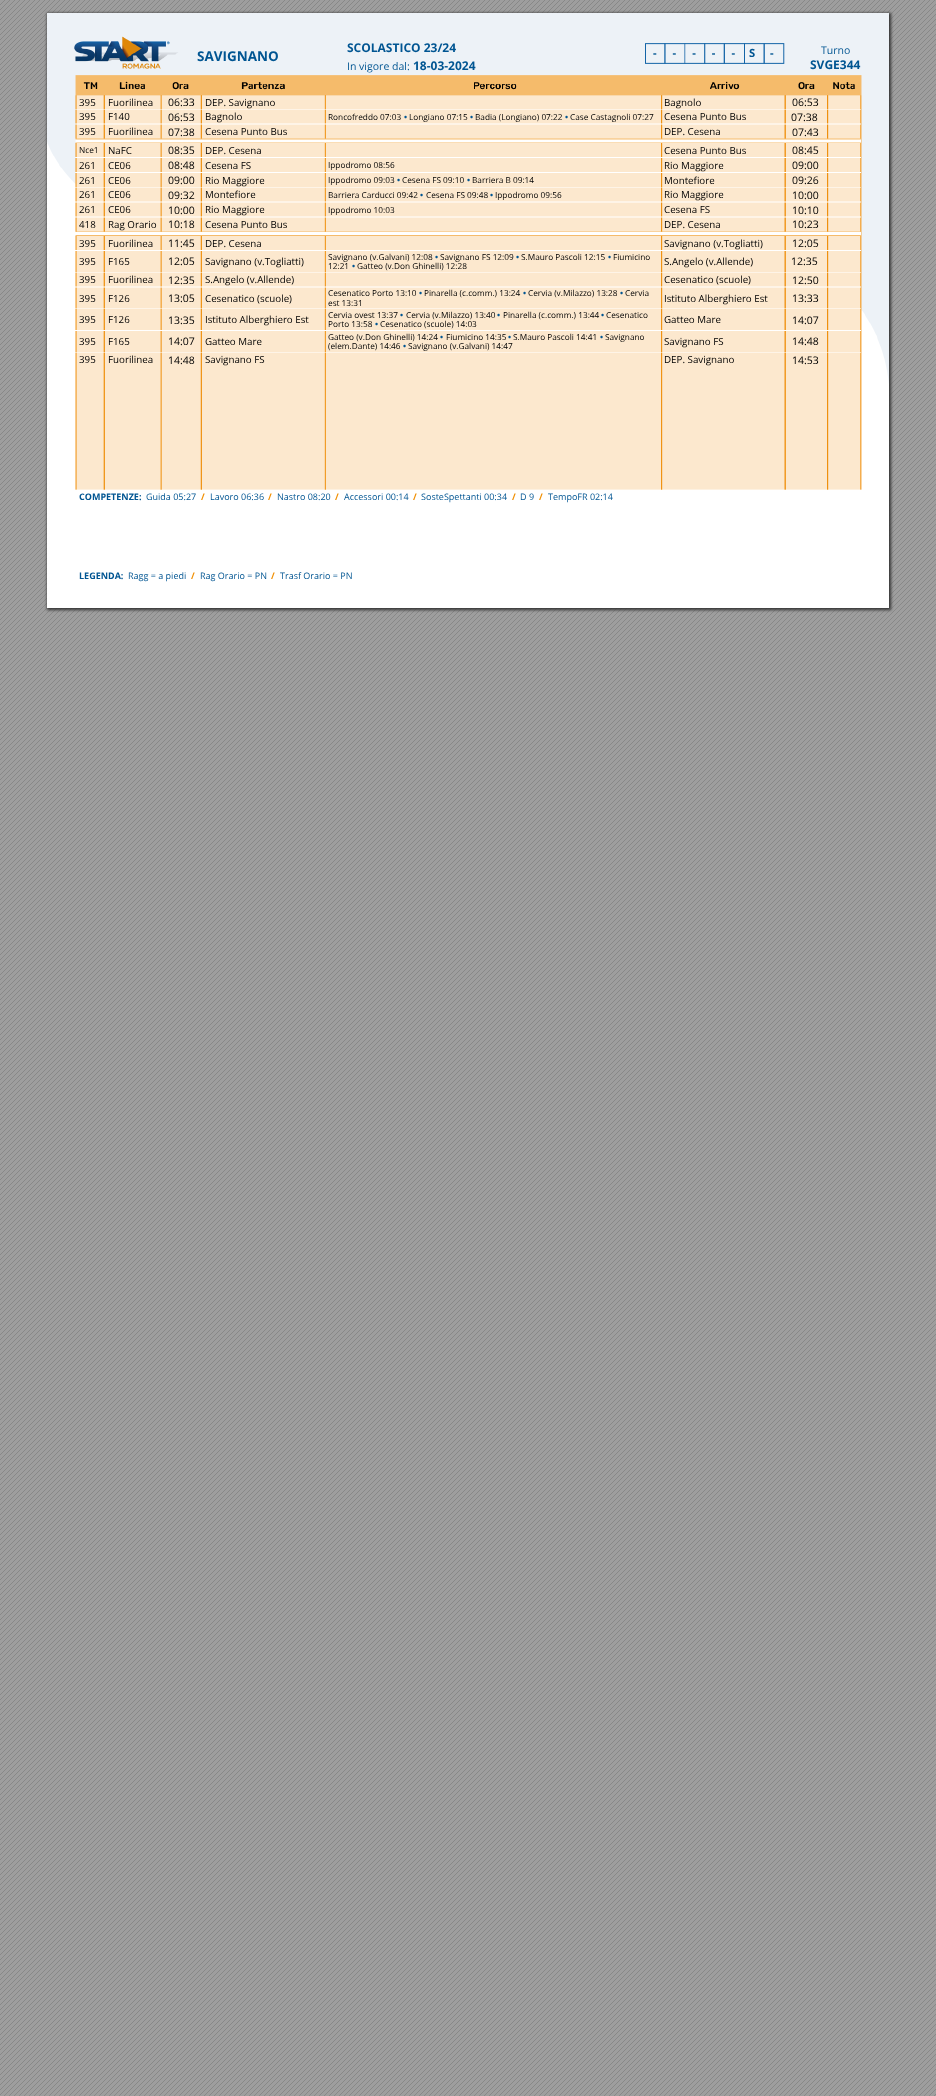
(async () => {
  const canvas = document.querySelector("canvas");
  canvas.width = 936;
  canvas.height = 2096;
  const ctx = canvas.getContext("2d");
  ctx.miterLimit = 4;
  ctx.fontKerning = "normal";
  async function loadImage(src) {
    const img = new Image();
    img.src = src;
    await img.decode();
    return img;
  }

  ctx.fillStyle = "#ffffff";
  ctx.fillRect(0, 0, 936, 2096);
  ctx.drawImage(await loadImage("img/1.png"), 0, 0, 936, 2096);
  ctx.fillStyle = "#333333";
  ctx.filter = "blur(1.5px)";
  ctx.beginPath();
  ctx.rect(47, 13, 844, 597);
  ctx.fill();
  ctx.filter = "none";
  ctx.fillStyle = "#ffffff";
  ctx.fillRect(47, 490, 842, 118);
  ctx.drawImage(await loadImage("img/2.png"), 47, 13, 842, 477);
  ctx.font = "bold 13.5px Open Sans";
  ctx.fillStyle = "#005592";
  ctx.fillText("SAVIGNANO", 197, 61);
  ctx.font = "bold 12px Open Sans";
  ctx.fillText("SCOLASTICO 23/24", 347, 52);
  ctx.letterSpacing = "16px";
  ctx.font = "bold 11.25px Open Sans";
  for (const [text, x, y] of [
    ["-----", 653, 57],
    ["S", 749, 57],
    ["-", 770, 57],
  ]) {
    ctx.fillText(text, x, y);
  }
  ctx.letterSpacing = "0px";
  ctx.font = "10.5px Open Sans";
  ctx.fillText("Turno", 821, 54);
  ctx.fillText("In vigore dal:", 347, 70);
  ctx.font = "bold 12px Open Sans";
  ctx.fillText("18-03-2024", 413, 70);
  ctx.fillText("SVGE344", 810, 69);
  ctx.font = "9.75px Open Sans";
  ctx.fillStyle = "#000000";
  ctx.fillText("395", 79, 106);
  ctx.fillText("Fuorilinea", 108, 106);
  ctx.font = "10.5px Open Sans";
  ctx.fillText("06:33", 168, 106);
  ctx.font = "9.75px Open Sans";
  ctx.fillText("DEP. Savignano", 205, 106);
  ctx.fillText("Bagnolo", 664, 106);
  ctx.font = "10.5px Open Sans";
  ctx.fillText("06:53", 792, 106);
  ctx.font = "9.75px Open Sans";
  ctx.fillText("395", 79, 120);
  ctx.fillText("F140", 108, 120);
  ctx.font = "10.5px Open Sans";
  ctx.fillText("06:53", 168, 121);
  ctx.font = "9.75px Open Sans";
  ctx.fillText("Bagnolo", 205, 120);
  ctx.font = "8.25px Open Sans";
  ctx.fillText("Roncofreddo 07:03", 328, 120);
  ctx.font = "bold 8.25px Open Sans";
  ctx.fillStyle = "#005592";
  ctx.fillText("•", 404, 120);
  ctx.font = "8.25px Open Sans";
  ctx.fillStyle = "#000000";
  ctx.fillText("Longiano 07:15", 409, 120);
  ctx.font = "bold 8.25px Open Sans";
  ctx.fillStyle = "#005592";
  ctx.fillText("•", 470, 120);
  ctx.font = "8.25px Open Sans";
  ctx.fillStyle = "#000000";
  ctx.fillText("Badia (Longiano) 07:22", 475, 120);
  ctx.font = "bold 8.25px Open Sans";
  ctx.fillStyle = "#005592";
  ctx.fillText("•", 565, 120);
  ctx.font = "8.25px Open Sans";
  ctx.fillStyle = "#000000";
  ctx.fillText("Case Castagnoli 07:27", 570, 120);
  ctx.font = "9.75px Open Sans";
  ctx.fillText("Cesena Punto Bus", 664, 120);
  ctx.font = "10.5px Open Sans";
  ctx.fillText("07:38", 791, 121);
  ctx.font = "9.75px Open Sans";
  ctx.fillText("395", 79, 135);
  ctx.fillText("Fuorilinea", 108, 135);
  ctx.font = "10.5px Open Sans";
  ctx.fillText("07:38", 168, 136);
  ctx.font = "9.75px Open Sans";
  ctx.fillText("Cesena Punto Bus", 205, 135);
  ctx.fillText("DEP. Cesena", 664, 135);
  ctx.font = "10.5px Open Sans";
  ctx.fillText("07:43", 792, 136);
  ctx.font = "8.25px Open Sans";
  ctx.fillText("Nce1", 79, 153);
  ctx.font = "9.75px Open Sans";
  ctx.fillText("NaFC", 108, 154);
  ctx.font = "10.5px Open Sans";
  ctx.fillText("08:35", 168, 154);
  ctx.font = "9.75px Open Sans";
  ctx.fillText("DEP. Cesena", 205, 154);
  ctx.fillText("Cesena Punto Bus", 664, 154);
  ctx.font = "10.5px Open Sans";
  ctx.fillText("08:45", 792, 154);
  ctx.font = "9.75px Open Sans";
  ctx.fillText("261", 79, 169);
  ctx.fillText("CE06", 108, 169);
  ctx.font = "10.5px Open Sans";
  ctx.fillText("08:48", 168, 169);
  ctx.font = "9.75px Open Sans";
  ctx.fillText("Cesena FS", 205, 169);
  ctx.font = "8.25px Open Sans";
  ctx.fillText("Ippodromo 08:56", 328, 168);
  ctx.font = "9.75px Open Sans";
  ctx.fillText("Rio Maggiore", 664, 169);
  ctx.font = "10.5px Open Sans";
  ctx.fillText("09:00", 792, 169);
  ctx.font = "9.75px Open Sans";
  ctx.fillText("261", 79, 184);
  ctx.fillText("CE06", 108, 184);
  ctx.font = "10.5px Open Sans";
  ctx.fillText("09:00", 168, 184);
  ctx.font = "9.75px Open Sans";
  ctx.fillText("Rio Maggiore", 205, 184);
  ctx.font = "8.25px Open Sans";
  ctx.fillText("Ippodromo 09:03", 328, 183);
  ctx.font = "bold 8.25px Open Sans";
  ctx.fillStyle = "#005592";
  ctx.fillText("•", 397, 183);
  ctx.font = "8.25px Open Sans";
  ctx.fillStyle = "#000000";
  ctx.fillText("Cesena FS 09:10", 402, 183);
  ctx.font = "bold 8.25px Open Sans";
  ctx.fillStyle = "#005592";
  ctx.fillText("•", 467, 183);
  ctx.font = "8.25px Open Sans";
  ctx.fillStyle = "#000000";
  ctx.fillText("Barriera B 09:14", 472, 183);
  ctx.font = "9.75px Open Sans";
  ctx.fillText("Montefiore", 664, 184);
  ctx.font = "10.5px Open Sans";
  ctx.fillText("09:26", 792, 184);
  ctx.font = "9.75px Open Sans";
  ctx.fillText("261", 79, 198);
  ctx.fillText("CE06", 108, 198);
  ctx.font = "10.5px Open Sans";
  ctx.fillText("09:32", 168, 199);
  ctx.font = "9.75px Open Sans";
  ctx.fillText("Montefiore", 205, 198);
  ctx.font = "8.25px Open Sans";
  ctx.fillText("Barriera Carducci 09:42", 328, 198);
  ctx.font = "bold 8.25px Open Sans";
  ctx.fillStyle = "#005592";
  ctx.fillText("•", 420, 198);
  ctx.font = "8.25px Open Sans";
  ctx.fillStyle = "#000000";
  ctx.fillText("Cesena FS 09:48", 426, 198);
  ctx.font = "bold 8.25px Open Sans";
  ctx.fillStyle = "#005592";
  ctx.fillText("•", 490, 198);
  ctx.font = "8.25px Open Sans";
  ctx.fillStyle = "#000000";
  ctx.fillText("Ippodromo 09:56", 495, 198);
  ctx.font = "9.75px Open Sans";
  ctx.fillText("Rio Maggiore", 664, 198);
  ctx.font = "10.5px Open Sans";
  ctx.fillText("10:00", 792, 199);
  ctx.font = "9.75px Open Sans";
  ctx.fillText("261", 79, 213);
  ctx.fillText("CE06", 108, 213);
  ctx.font = "10.5px Open Sans";
  ctx.fillText("10:00", 168, 214);
  ctx.font = "9.75px Open Sans";
  ctx.fillText("Rio Maggiore", 205, 213);
  ctx.font = "8.25px Open Sans";
  ctx.fillText("Ippodromo 10:03", 328, 213);
  ctx.font = "9.75px Open Sans";
  ctx.fillText("Cesena FS", 664, 213);
  ctx.font = "10.5px Open Sans";
  ctx.fillText("10:10", 792, 214);
  ctx.font = "9.75px Open Sans";
  ctx.fillText("418", 79, 228);
  ctx.fillText("Rag Orario", 108, 228);
  ctx.font = "10.5px Open Sans";
  ctx.fillText("10:18", 168, 228);
  ctx.font = "9.75px Open Sans";
  ctx.fillText("Cesena Punto Bus", 205, 228);
  ctx.fillText("DEP. Cesena", 664, 228);
  ctx.font = "10.5px Open Sans";
  ctx.fillText("10:23", 792, 228);
  ctx.font = "9.75px Open Sans";
  ctx.fillText("395", 79, 247);
  ctx.fillText("Fuorilinea", 108, 247);
  ctx.font = "10.5px Open Sans";
  ctx.fillText("11:45", 168, 247);
  ctx.font = "9.75px Open Sans";
  ctx.fillText("DEP. Cesena", 205, 247);
  ctx.fillText("Savignano (v.Togliatti)", 664, 247);
  ctx.font = "10.5px Open Sans";
  ctx.fillText("12:05", 792, 247);
  ctx.font = "9.75px Open Sans";
  ctx.fillText("395", 79, 265);
  ctx.fillText("F165", 108, 265);
  ctx.font = "10.5px Open Sans";
  ctx.fillText("12:05", 168, 265);
  ctx.font = "9.75px Open Sans";
  ctx.fillText("Savignano (v.Togliatti)", 205, 265);
  ctx.font = "8.25px Open Sans";
  ctx.fillText("Savignano (v.Galvani) 12:08", 328, 260);
  ctx.font = "bold 8.25px Open Sans";
  ctx.fillStyle = "#005592";
  ctx.fillText("•", 435, 260);
  ctx.font = "8.25px Open Sans";
  ctx.fillStyle = "#000000";
  ctx.fillText("Savignano FS 12:09", 440, 260);
  ctx.font = "bold 8.25px Open Sans";
  ctx.fillStyle = "#005592";
  ctx.fillText("•", 516, 260);
  ctx.font = "8.25px Open Sans";
  ctx.fillStyle = "#000000";
  ctx.fillText("S.Mauro Pascoli 12:15", 521, 260);
  ctx.font = "bold 8.25px Open Sans";
  ctx.fillStyle = "#005592";
  ctx.fillText("•", 608, 260);
  ctx.font = "8.25px Open Sans";
  ctx.fillStyle = "#000000";
  ctx.fillText("Fiumicino", 613, 260);
  ctx.fillText("12:21", 328, 269);
  ctx.font = "bold 8.25px Open Sans";
  ctx.fillStyle = "#005592";
  ctx.fillText("•", 352, 269);
  ctx.font = "8.25px Open Sans";
  ctx.fillStyle = "#000000";
  ctx.fillText("Gatteo (v.Don Ghinelli) 12:28", 357, 269);
  ctx.font = "9.75px Open Sans";
  ctx.fillText("S.Angelo (v.Allende)", 664, 265);
  ctx.font = "10.5px Open Sans";
  ctx.fillText("12:35", 791, 265);
  ctx.font = "9.75px Open Sans";
  ctx.fillText("395", 79, 283);
  ctx.fillText("Fuorilinea", 108, 283);
  ctx.font = "10.5px Open Sans";
  ctx.fillText("12:35", 168, 284);
  ctx.font = "9.75px Open Sans";
  ctx.fillText("S.Angelo (v.Allende)", 205, 283);
  ctx.fillText("Cesenatico (scuole)", 664, 283);
  ctx.font = "10.5px Open Sans";
  ctx.fillText("12:50", 792, 284);
  ctx.font = "8.25px Open Sans";
  ctx.fillText("Cesenatico Porto 13:10", 328, 296);
  ctx.font = "bold 8.25px Open Sans";
  ctx.fillStyle = "#005592";
  ctx.fillText("•", 419, 296);
  ctx.font = "8.25px Open Sans";
  ctx.fillStyle = "#000000";
  ctx.fillText("Pinarella (c.comm.) 13:24", 424, 296);
  ctx.font = "bold 8.25px Open Sans";
  ctx.fillStyle = "#005592";
  ctx.fillText("•", 523, 296);
  ctx.font = "8.25px Open Sans";
  ctx.fillStyle = "#000000";
  ctx.fillText("Cervia (v.Milazzo) 13:28", 528, 296);
  ctx.font = "bold 8.25px Open Sans";
  ctx.fillStyle = "#005592";
  ctx.fillText("•", 620, 296);
  ctx.font = "8.25px Open Sans";
  ctx.fillStyle = "#000000";
  ctx.fillText("Cervia", 625, 296);
  ctx.font = "9.75px Open Sans";
  ctx.fillText("395", 79, 302);
  ctx.fillText("F126", 108, 302);
  ctx.font = "10.5px Open Sans";
  ctx.fillText("13:05", 168, 302);
  ctx.font = "9.75px Open Sans";
  ctx.fillText("Cesenatico (scuole)", 205, 302);
  ctx.font = "8.25px Open Sans";
  ctx.fillText("est 13:31", 328, 306);
  ctx.font = "9.75px Open Sans";
  ctx.fillText("Istituto Alberghiero Est", 664, 302);
  ctx.font = "10.5px Open Sans";
  ctx.fillText("13:33", 792, 302);
  ctx.font = "9.75px Open Sans";
  ctx.fillText("395", 79, 323);
  ctx.fillText("F126", 108, 323);
  ctx.font = "10.5px Open Sans";
  ctx.fillText("13:35", 168, 324);
  ctx.font = "9.75px Open Sans";
  ctx.fillText("Istituto Alberghiero Est", 205, 323);
  ctx.font = "8.25px Open Sans";
  ctx.fillText("Cervia ovest 13:37", 328, 318);
  ctx.font = "bold 8.25px Open Sans";
  ctx.fillStyle = "#005592";
  ctx.fillText("•", 400, 318);
  ctx.font = "8.25px Open Sans";
  ctx.fillStyle = "#000000";
  ctx.fillText("Cervia (v.Milazzo) 13:40", 406, 318);
  ctx.font = "bold 8.25px Open Sans";
  ctx.fillStyle = "#005592";
  ctx.fillText("•", 497, 318);
  ctx.font = "8.25px Open Sans";
  ctx.fillStyle = "#000000";
  ctx.fillText("Pinarella (c.comm.) 13:44", 503, 318);
  ctx.font = "bold 8.25px Open Sans";
  ctx.fillStyle = "#005592";
  ctx.fillText("•", 601, 318);
  ctx.font = "8.25px Open Sans";
  ctx.fillStyle = "#000000";
  ctx.fillText("Cesenatico", 606, 318);
  ctx.fillText("Porto 13:58", 328, 327);
  ctx.font = "bold 8.25px Open Sans";
  ctx.fillStyle = "#005592";
  ctx.fillText("•", 375, 327);
  ctx.font = "8.25px Open Sans";
  ctx.fillStyle = "#000000";
  ctx.fillText("Cesenatico (scuole) 14:03", 380, 327);
  ctx.font = "9.75px Open Sans";
  ctx.fillText("Gatteo Mare", 664, 323);
  ctx.font = "10.5px Open Sans";
  ctx.fillText("14:07", 792, 324);
  ctx.font = "9.75px Open Sans";
  ctx.fillText("395", 79, 345);
  ctx.fillText("F165", 108, 345);
  ctx.font = "10.5px Open Sans";
  ctx.fillText("14:07", 168, 345);
  ctx.font = "9.75px Open Sans";
  ctx.fillText("Gatteo Mare", 205, 345);
  ctx.font = "8.25px Open Sans";
  ctx.fillText("Gatteo (v.Don Ghinelli) 14:24", 328, 340);
  ctx.font = "bold 8.25px Open Sans";
  ctx.fillStyle = "#005592";
  ctx.fillText("•", 440, 340);
  ctx.font = "8.25px Open Sans";
  ctx.fillStyle = "#000000";
  ctx.fillText("Fiumicino 14:35", 446, 340);
  ctx.font = "bold 8.25px Open Sans";
  ctx.fillStyle = "#005592";
  ctx.fillText("•", 508, 340);
  ctx.font = "8.25px Open Sans";
  ctx.fillStyle = "#000000";
  ctx.fillText("S.Mauro Pascoli 14:41", 513, 340);
  ctx.font = "bold 8.25px Open Sans";
  ctx.fillStyle = "#005592";
  ctx.fillText("•", 600, 340);
  ctx.font = "8.25px Open Sans";
  ctx.fillStyle = "#000000";
  ctx.fillText("Savignano", 605, 340);
  ctx.fillText("(elem.Dante) 14:46", 328, 349);
  ctx.font = "bold 8.25px Open Sans";
  ctx.fillStyle = "#005592";
  ctx.fillText("•", 403, 349);
  ctx.font = "8.25px Open Sans";
  ctx.fillStyle = "#000000";
  ctx.fillText("Savignano (v.Galvani) 14:47", 408, 349);
  ctx.font = "9.75px Open Sans";
  ctx.fillText("Savignano FS", 664, 345);
  ctx.font = "10.5px Open Sans";
  ctx.fillText("14:48", 792, 345);
  ctx.font = "9.75px Open Sans";
  ctx.fillText("395", 79, 363);
  ctx.fillText("Fuorilinea", 108, 363);
  ctx.font = "10.5px Open Sans";
  ctx.fillText("14:48", 168, 364);
  ctx.font = "9.75px Open Sans";
  ctx.fillText("Savignano FS", 205, 363);
  ctx.fillText("DEP. Savignano", 664, 363);
  ctx.font = "10.5px Open Sans";
  ctx.fillText("14:53", 792, 364);
  ctx.font = "bold 9px Open Sans";
  ctx.fillStyle = "#005592";
  ctx.fillText("COMPETENZE:", 79, 500);
  ctx.font = "9px Open Sans";
  ctx.fillText("Guida 05:27", 146, 500);
  ctx.font = "bold 9px Open Sans";
  ctx.fillStyle = "#f18f00";
  ctx.fillText("/", 201, 500);
  ctx.font = "9px Open Sans";
  ctx.fillStyle = "#005592";
  ctx.fillText("Lavoro 06:36", 210, 500);
  ctx.font = "bold 9px Open Sans";
  ctx.fillStyle = "#f18f00";
  ctx.fillText("/", 268, 500);
  ctx.font = "9px Open Sans";
  ctx.fillStyle = "#005592";
  ctx.fillText("Nastro 08:20", 277, 500);
  ctx.font = "bold 9px Open Sans";
  ctx.fillStyle = "#f18f00";
  ctx.fillText("/", 335, 500);
  ctx.font = "9px Open Sans";
  ctx.fillStyle = "#005592";
  ctx.fillText("Accessori 00:14", 344, 500);
  ctx.font = "bold 9px Open Sans";
  ctx.fillStyle = "#f18f00";
  ctx.fillText("/", 413, 500);
  ctx.font = "9px Open Sans";
  ctx.fillStyle = "#005592";
  ctx.fillText("SosteSpettanti 00:34", 421, 500);
  ctx.font = "bold 9px Open Sans";
  ctx.fillStyle = "#f18f00";
  ctx.fillText("/", 512, 500);
  ctx.font = "9px Open Sans";
  ctx.fillStyle = "#005592";
  ctx.fillText("D 9", 520, 500);
  ctx.font = "bold 9px Open Sans";
  ctx.fillStyle = "#f18f00";
  ctx.fillText("/", 539, 500);
  ctx.font = "9px Open Sans";
  ctx.fillStyle = "#005592";
  ctx.fillText("TempoFR 02:14", 548, 500);
  ctx.font = "bold 9px Open Sans";
  ctx.fillText("LEGENDA:", 79, 579);
  ctx.font = "9px Open Sans";
  ctx.fillText("Ragg = a piedi", 128, 579);
  ctx.font = "bold 9px Open Sans";
  ctx.fillStyle = "#f18f00";
  ctx.fillText("/", 191, 579);
  ctx.font = "9px Open Sans";
  ctx.fillStyle = "#005592";
  ctx.fillText("Rag Orario = PN", 200, 579);
  ctx.font = "bold 9px Open Sans";
  ctx.fillStyle = "#f18f00";
  ctx.fillText("/", 271, 579);
  ctx.font = "9px Open Sans";
  ctx.fillStyle = "#005592";
  ctx.fillText("Trasf Orario = PN", 280, 579);
})();
